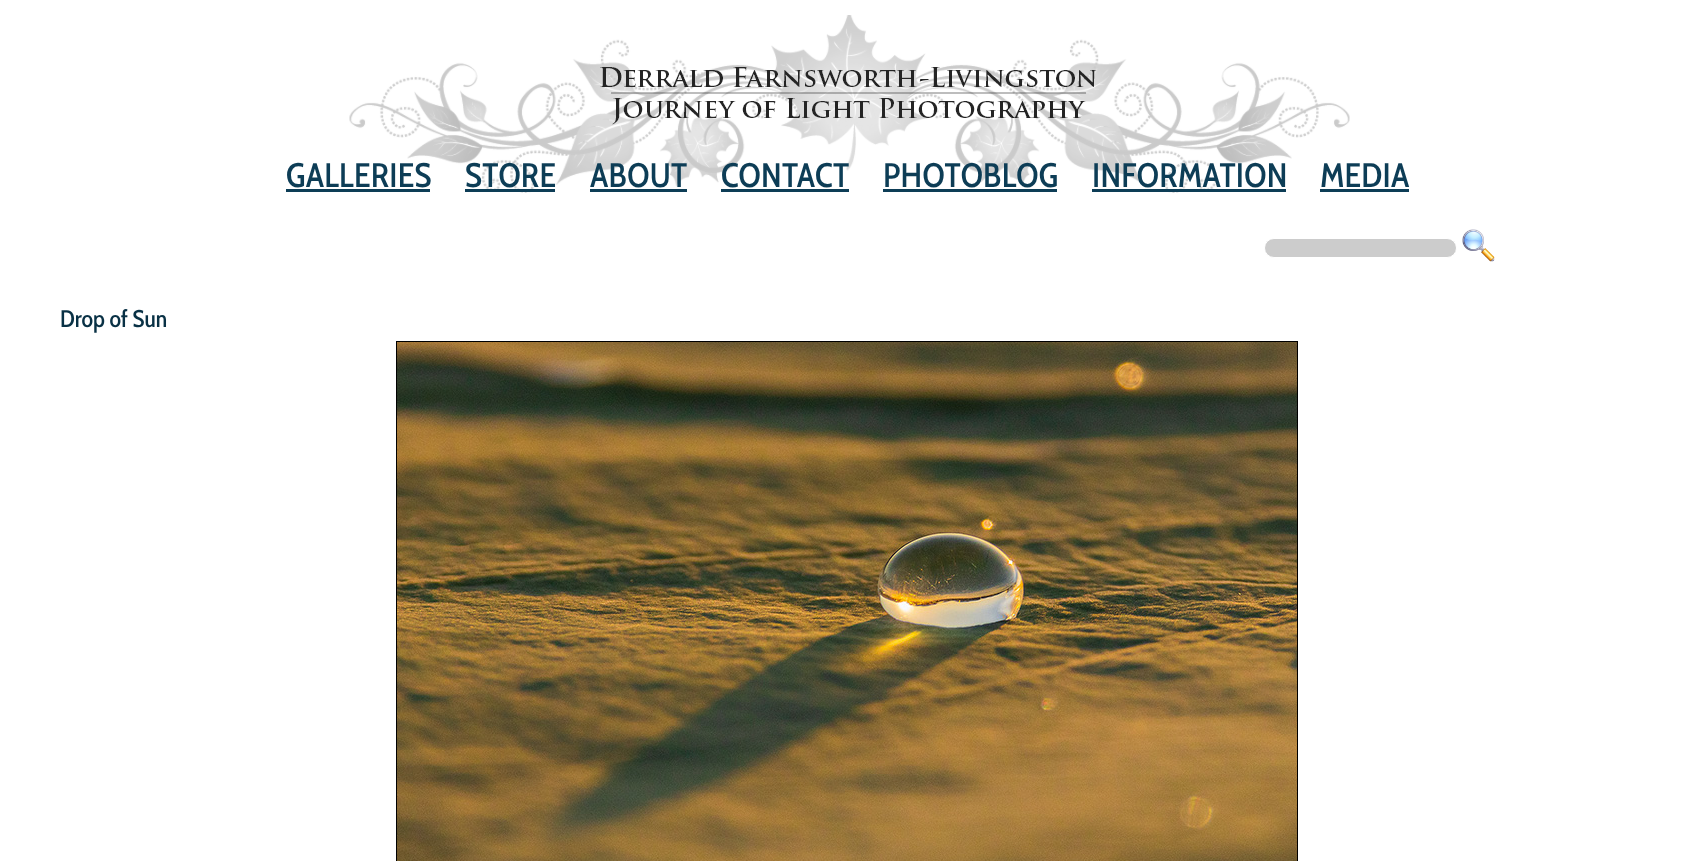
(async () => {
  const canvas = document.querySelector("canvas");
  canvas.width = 1695;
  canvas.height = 861;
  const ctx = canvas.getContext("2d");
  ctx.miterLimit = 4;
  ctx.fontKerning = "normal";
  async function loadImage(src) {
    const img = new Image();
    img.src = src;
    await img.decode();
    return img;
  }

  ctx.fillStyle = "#ffffff";
  ctx.fillRect(0, 0, 1695, 861);
  ctx.drawImage(await loadImage("img/1.png"), 349, 15, 1001, 178);
  for (const [x, y, w, h, color] of [
    [286, 189, 144, 3, "#0d3d56"],
    [465, 189, 90, 3, "#0d3d56"],
    [590, 189, 97, 3, "#0d3d56"],
    [721, 189, 128, 3, "#0d3d56"],
    [883, 189, 174, 3, "#0d3d56"],
    [1092, 189, 194, 3, "#0d3d56"],
    [1320, 189, 89, 3, "#0d3d56"],
  ]) {
    ctx.fillStyle = color;
    ctx.fillRect(x, y, w, h);
  }
  ctx.fillStyle = "#cccccc";
  ctx.beginPath();
  ctx.roundRect(1264.5, 238.5, 192, 19, 9.5);
  ctx.fill();
  ctx.strokeStyle = "#ffffff";
  ctx.stroke();
  ctx.drawImage(await loadImage("img/2.png"), 1462, 229, 33, 33);
  ctx.strokeStyle = "#000000";
  ctx.strokeRect(396.5, 341.5, 901, 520);
  ctx.drawImage(await loadImage("img/3.png"), 397, 342, 900, 519);
  ctx.letterSpacing = "0.25px";
  ctx.font = "500 34px Cabin Condensed";
  ctx.fillStyle = "#0d3d56";
  for (const [text, x, y] of [
    ["GALLERIES", 286, 187],
    ["STORE", 465, 187],
    ["ABOUT", 590, 187],
    ["CONTACT", 721, 187],
    ["PHOTOBLOG", 883, 187],
    ["INFORMATION", 1092, 187],
    ["MEDIA", 1320, 187],
  ]) {
    ctx.fillText(text, x, y);
  }
  ctx.letterSpacing = "0px";
  ctx.font = "500 24px Cabin Condensed";
  ctx.fillStyle = "#093145";
  ctx.fillText("Drop of Sun", 60, 327);
})();
